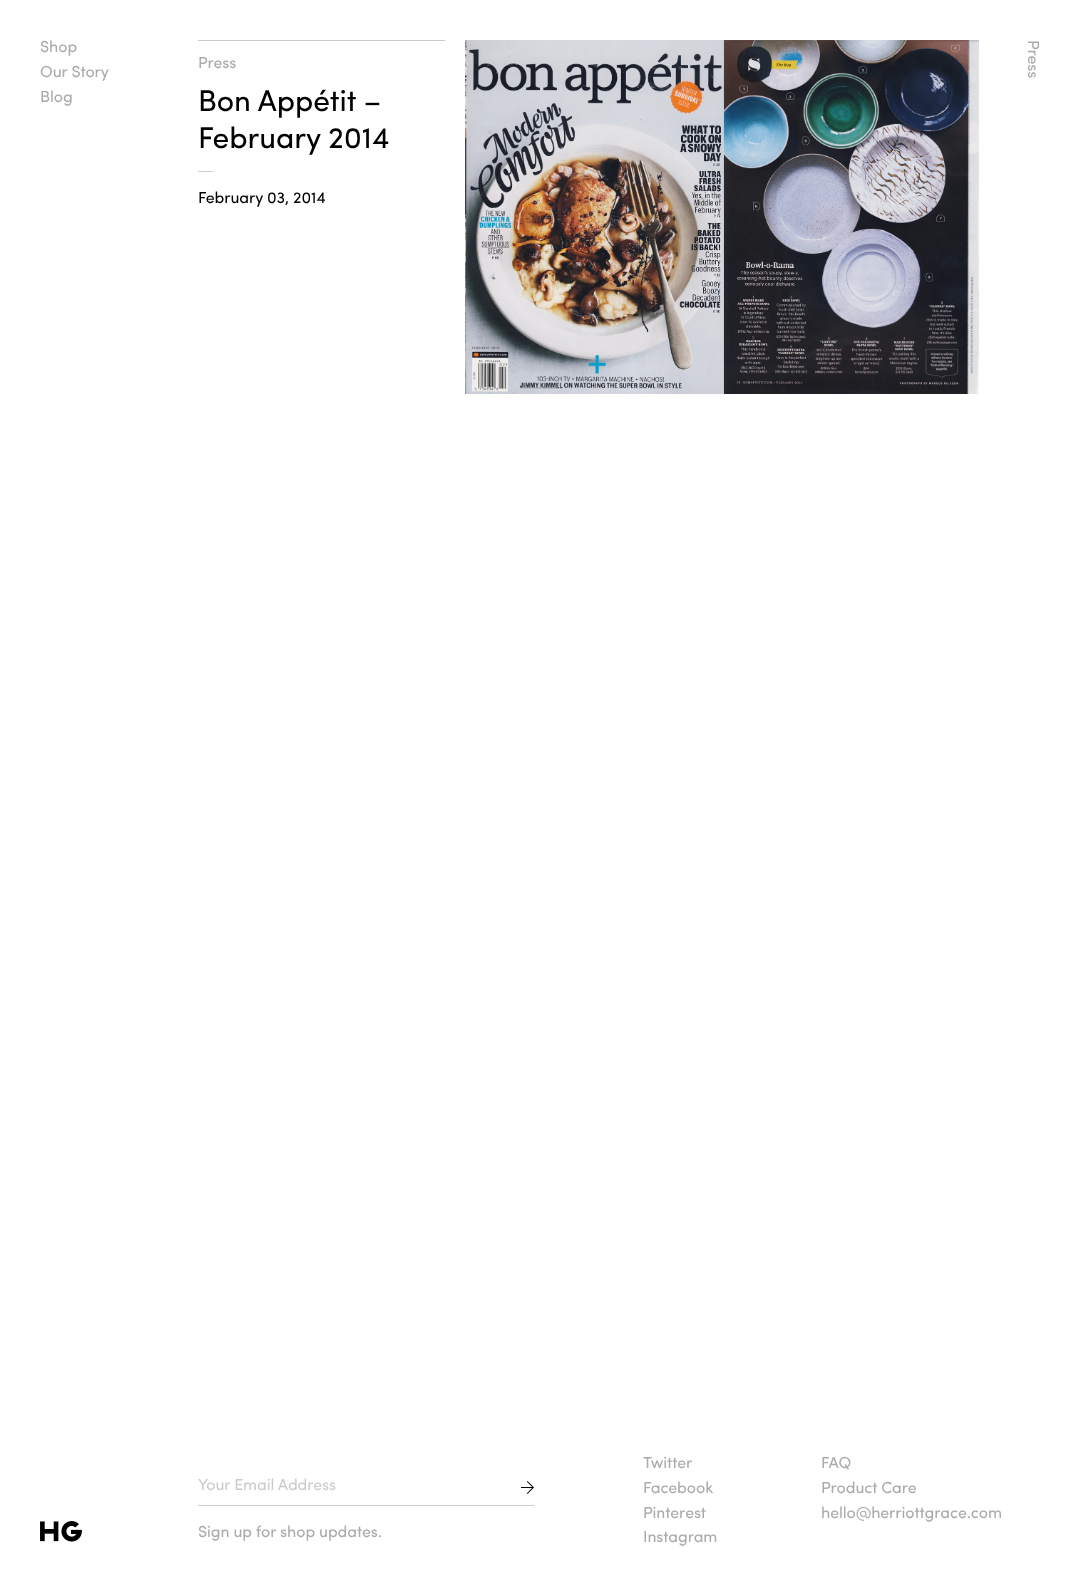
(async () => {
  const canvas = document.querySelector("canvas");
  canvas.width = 1088;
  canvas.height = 1582;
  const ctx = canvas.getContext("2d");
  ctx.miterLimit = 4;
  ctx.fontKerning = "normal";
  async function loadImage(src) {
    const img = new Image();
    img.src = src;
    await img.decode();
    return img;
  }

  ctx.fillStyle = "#ffffff";
  ctx.fillRect(0, 0, 1088, 1582);
  ctx.drawImage(await loadImage("img/1.png"), 40, 1521, 42, 21);
  ctx.fillStyle = "#cccccc";
  ctx.fillRect(198, 40, 247, 1);
  ctx.fillRect(198, 171, 15, 1);
  ctx.drawImage(await loadImage("img/2.png"), 465, 40, 514, 354);
  ctx.fillRect(198, 1505, 336, 1);
  ctx.drawImage(await loadImage("img/3.png"), 521, 1481, 13, 13);
  ctx.letterSpacing = "-0.1px";
  ctx.font = "16px Sofia";
  ctx.fillStyle = "#ababab";
  for (const [text, x, y] of [
    ["Shop", 40, 52],
    ["Our Story", 40, 77],
    ["Blog", 40, 102],
    ["Press", 198, 68],
  ]) {
    ctx.fillText(text, x, y);
  }
  ctx.font = "30px Sofia";
  ctx.fillStyle = "#000000";
  ctx.fillText("Bon Appétit –", 198, 111);
  ctx.fillText("February 2014", 198, 148);
  ctx.font = "16px Sofia";
  ctx.fillText("February 03, 2014", 198, 203);
  ctx.fillStyle = "#ababab";
  ctx.save();
  ctx.translate(1028, 40);
  ctx.rotate(90 * Math.PI / 180);
  ctx.fillText("Press", 0, 0);
  ctx.restore();
  ctx.fillStyle = "#cccccc";
  ctx.fillText("Your Email Address", 198, 1490);
  ctx.fillStyle = "#ababab";
  for (const [text, x, y] of [
    ["Sign up for shop updates.", 198, 1537],
    ["Twitter", 643, 1468],
    ["Facebook", 643, 1493],
    ["Pinterest", 643, 1518],
    ["Instagram", 643, 1542],
    ["FAQ", 821, 1468],
    ["Product Care", 821, 1493],
    ["hello@herriottgrace.com", 821, 1518],
  ]) {
    ctx.fillText(text, x, y);
  }
})();
